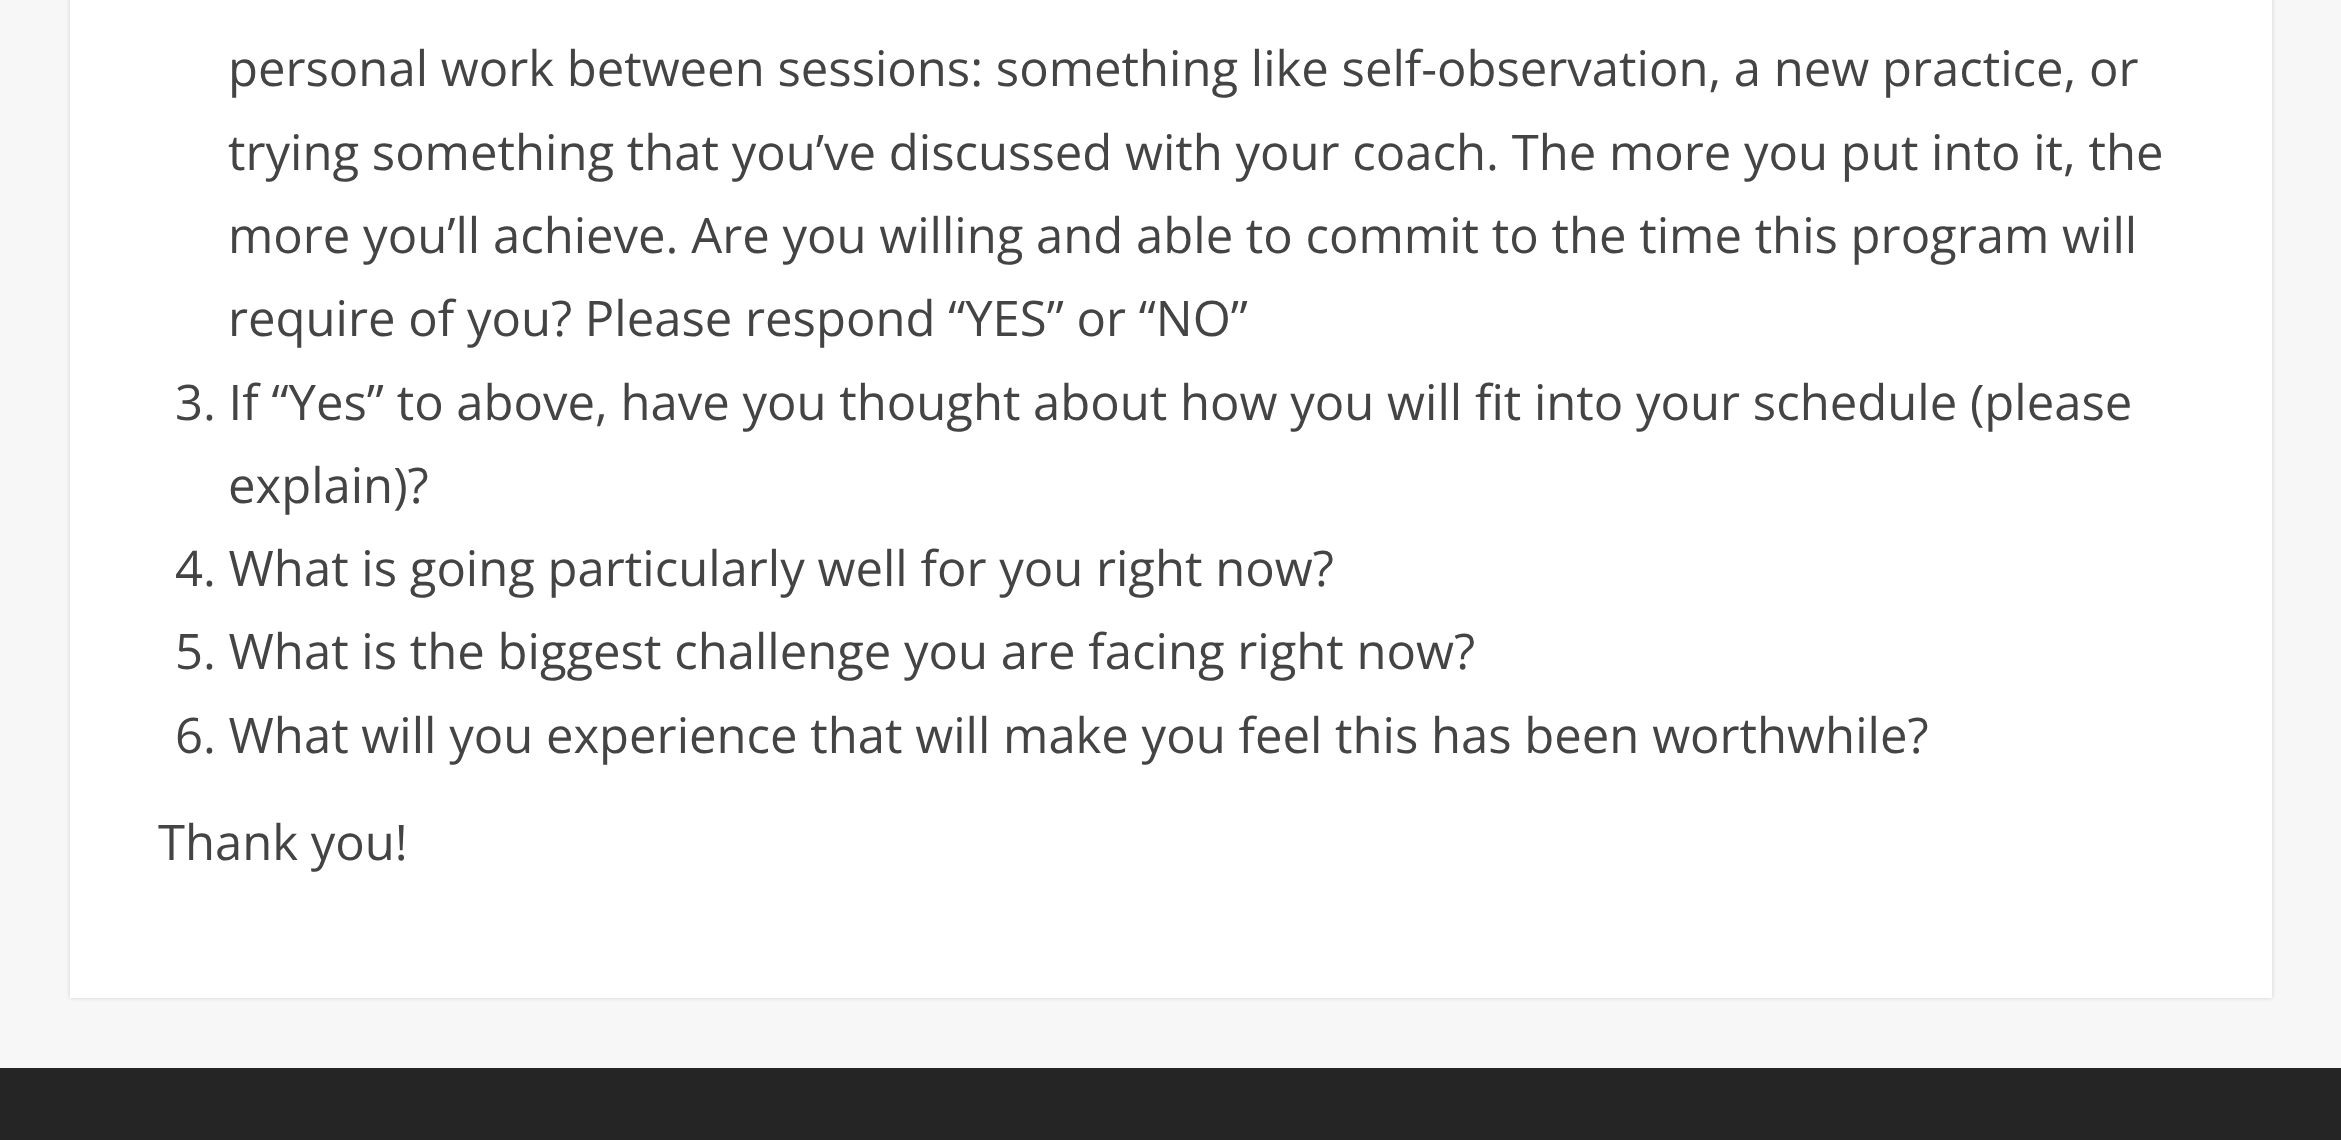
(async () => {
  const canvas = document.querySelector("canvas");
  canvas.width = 2341;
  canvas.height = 1140;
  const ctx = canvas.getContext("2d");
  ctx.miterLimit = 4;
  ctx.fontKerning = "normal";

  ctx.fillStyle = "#f7f7f7";
  ctx.fillRect(0, 0, 2341, 1140);
  ctx.fillStyle = "rgba(0, 0, 0, 0.15)";
  ctx.filter = "blur(2px)";
  ctx.beginPath();
  ctx.rect(70, -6, 2202, 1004);
  ctx.fill();
  ctx.filter = "none";
  ctx.fillStyle = "#ffffff";
  ctx.fillRect(70, 0, 2202, 998);
  ctx.fillStyle = "#252525";
  ctx.fillRect(0, 1068, 2341, 72);
  ctx.font = "49px Open Sans";
  ctx.fillStyle = "#444444";
  for (const [text, x, y] of [
    ["personal work between sessions: something like self-observation, a new practice, or", 228, 86],
    ["trying something that you’ve discussed with your coach. The more you put into it, the", 228, 170],
    ["more you’ll achieve. Are you willing and able to commit to the time this program will", 228, 253],
    ["require of you? Please respond “YES” or “NO”", 228, 336],
    ["3. If “Yes” to above, have you thought about how you will fit into your schedule (please", 175, 420],
    ["explain)?", 228, 503],
    ["4. What is going particularly well for you right now?", 175, 586],
    ["5. What is the biggest challenge you are facing right now?", 175, 669],
    ["6. What will you experience that will make you feel this has been worthwhile?", 175, 753],
    ["Thank you!", 158, 860],
  ]) {
    ctx.fillText(text, x, y);
  }
})();
